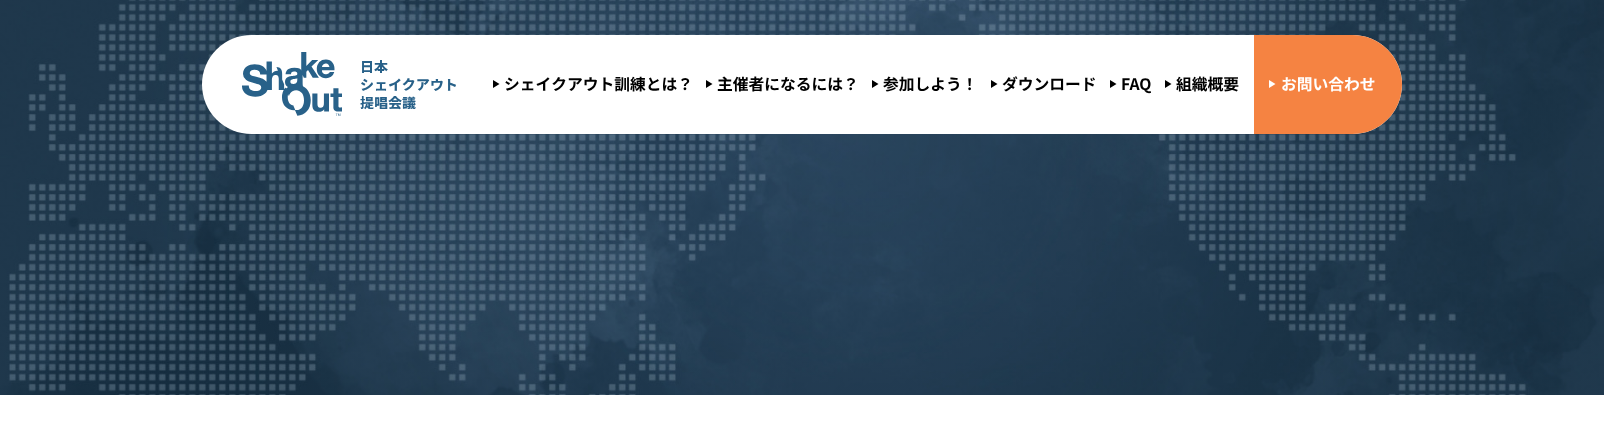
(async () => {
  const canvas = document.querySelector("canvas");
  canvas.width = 1604;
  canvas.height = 439;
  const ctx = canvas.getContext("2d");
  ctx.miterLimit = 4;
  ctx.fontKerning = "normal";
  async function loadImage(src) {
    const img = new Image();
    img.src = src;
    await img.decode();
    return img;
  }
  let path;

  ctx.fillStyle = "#ffffff";
  ctx.fillRect(0, 0, 1604, 439);
  ctx.drawImage(await loadImage("img/1.png"), 0, 0, 1604, 395);
  ctx.beginPath();
  ctx.roundRect(202, 35, 1200, 99, 49.5);
  ctx.fill();
  ctx.drawImage(await loadImage("img/2.png"), 242, 52, 214, 64);
  ctx.fillStyle = "#000000";
  path = new Path2D("M499.5 84L493 88V80Z");
  ctx.fill(path);
  path = new Path2D("M712.5 84L706 88V80Z");
  ctx.fill(path);
  path = new Path2D("M878.5 84L872 88V80Z");
  ctx.fill(path);
  path = new Path2D("M997.5 84L991 88V80Z");
  ctx.fill(path);
  path = new Path2D("M1116.5 84L1110 88V80Z");
  ctx.fill(path);
  path = new Path2D("M1171.5 84L1165 88V80Z");
  ctx.fill(path);
  ctx.fillStyle = "#f58342";
  ctx.beginPath();
  ctx.roundRect(1254, 35, 148, 99, [0, 49.5, 49.5, 0]);
  ctx.fill();
  ctx.fillStyle = "#ffffff";
  path = new Path2D("M1275.5 84L1269 88V80Z");
  ctx.fill(path);
  ctx.font = "bold 15.75px Noto Sans JP";
  ctx.fillStyle = "#000000";
  for (const [text, x, y] of [
    ["シェイクアウト訓練とは？", 504, 90],
    ["主催者になるには？", 717, 90],
    ["参加しよう！", 883, 90],
    ["ダウンロード", 1002, 90],
    ["FAQ", 1121, 90],
    ["組織概要", 1176, 90],
  ]) {
    ctx.fillText(text, x, y);
  }
  ctx.fillStyle = "#ffffff";
  ctx.fillText("お問い合わせ", 1281, 90);
})();
